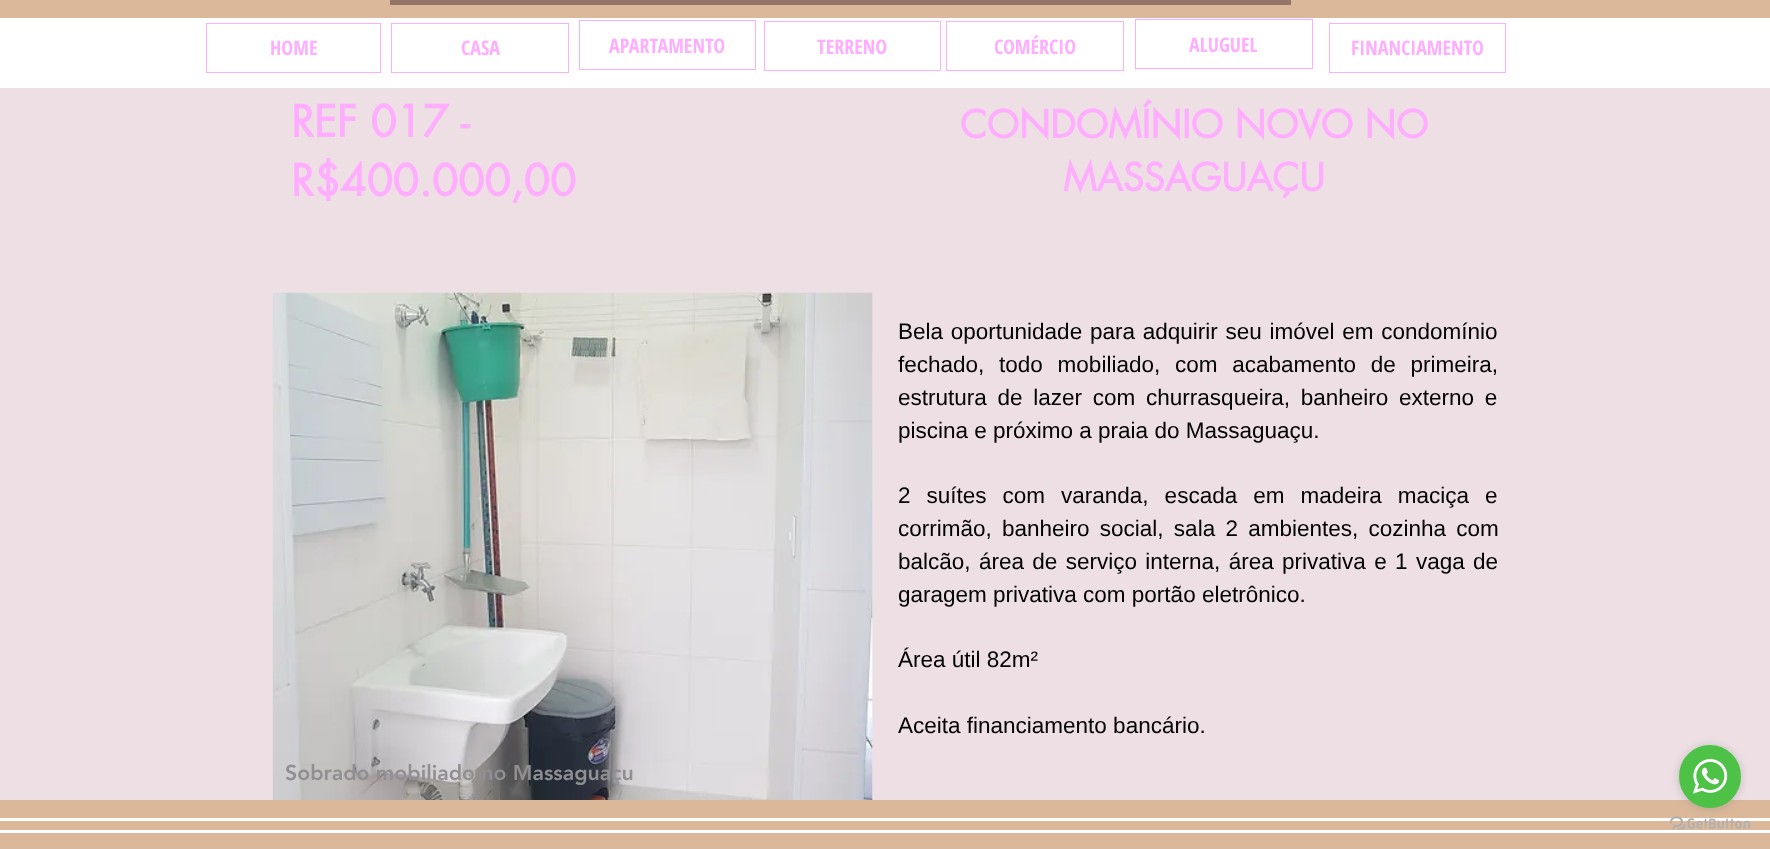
(async () => {
  const canvas = document.querySelector("canvas");
  canvas.width = 1770;
  canvas.height = 849;
  const ctx = canvas.getContext("2d");
  ctx.miterLimit = 4;
  ctx.fontKerning = "normal";
  async function loadImage(src) {
    const img = new Image();
    img.src = src;
    await img.decode();
    return img;
  }

  ctx.fillStyle = "#eddfe4";
  ctx.fillRect(0, 0, 1770, 849);
  for (const [x, y, w, h, color] of [
    [0, 0, 1770, 18, "#dbb89a"],
    [390, 0, 901, 5, "#967569"],
    [0, 18, 1770, 70, "#ffffff"],
  ]) {
    ctx.fillStyle = color;
    ctx.fillRect(x, y, w, h);
  }
  ctx.strokeStyle = "#ffadff";
  ctx.strokeRect(206.5, 23.5, 174, 49);
  ctx.strokeRect(391.5, 23.5, 177, 49);
  ctx.strokeRect(579.5, 20.5, 176, 49);
  ctx.strokeRect(764.5, 21.5, 176, 49);
  ctx.strokeRect(946.5, 21.5, 177, 49);
  ctx.strokeRect(1135.5, 19.5, 177, 49);
  ctx.strokeRect(1329.5, 23.5, 176, 49);
  ctx.drawImage(await loadImage("img/1.png"), 272, 292, 601, 508);
  for (const [x, y, w, h, color] of [
    [0, 800, 1770, 49, "#dbb89a"],
    [0, 818, 1770, 3, "#ffffff"],
    [0, 830, 1770, 3, "#ffffff"],
  ]) {
    ctx.fillStyle = color;
    ctx.fillRect(x, y, w, h);
  }
  ctx.drawImage(await loadImage("img/3.png"), 1670, 816, 80, 14);
  ctx.fillStyle = "rgba(136, 136, 136, 0.4)";
  ctx.filter = "blur(4.5px)";
  ctx.beginPath();
  ctx.roundRect(1679, 746, 62, 63, 31);
  ctx.fill();
  ctx.filter = "none";
  ctx.fillStyle = "#4dc247";
  ctx.beginPath();
  ctx.roundRect(1679, 745, 62, 63, 31);
  ctx.fill();
  ctx.drawImage(await loadImage("img/2.png"), 1692, 759, 36, 35);
  ctx.font = "bold 20px Open Sans Condensed";
  ctx.fillStyle = "#ffadff";
  for (const [text, x, y] of [
    ["HOME", 270, 55],
    ["CASA", 461, 55],
    ["APARTAMENTO", 609, 53],
    ["TERRENO", 817, 54],
    ["COMÉRCIO", 994, 54],
    ["ALUGUEL", 1189, 52],
    ["FINANCIAMENTO", 1351, 55],
  ]) {
    ctx.fillText(text, x, y);
  }
  ctx.font = "bold 42.5px futura";
  ctx.fillText("REF 017 -", 291, 137);
  ctx.fillText("R$400.000,00", 291, 196);
  ctx.font = "bold 37.5px futura";
  ctx.fillText("CONDOMÍNIO NOVO NO", 960, 138);
  ctx.fillText("MASSAGUAÇU", 1063, 191);
  ctx.wordSpacing = "1.5px";
  ctx.font = "22.5px Liberation Sans";
  ctx.fillStyle = "#000000";
  ctx.fillText("Bela oportunidade para adquirir seu imóvel em condomínio", 898, 339);
  ctx.wordSpacing = "8.5px";
  ctx.fillText("fechado, todo mobiliado, com acabamento de primeira,", 898, 372);
  ctx.wordSpacing = "4.5px";
  ctx.fillText("estrutura de lazer com churrasqueira, banheiro externo e", 898, 405);
  ctx.wordSpacing = "0px";
  ctx.fillText("piscina e próximo a praia do Massaguaçu.", 898, 438);
  ctx.wordSpacing = "9.75px";
  ctx.fillText("2 suítes com varanda, escada em madeira maciça e", 898, 503);
  ctx.wordSpacing = "4px";
  ctx.fillText("corrimão, banheiro social, sala 2 ambientes, cozinha com", 898, 536);
  ctx.wordSpacing = "2.1px";
  ctx.fillText("balcão, área de serviço interna, área privativa e 1 vaga de", 898, 569);
  ctx.wordSpacing = "0px";
  for (const [text, x, y] of [
    ["garagem privativa com portão eletrônico.", 898, 602],
    ["Área útil 82m²", 898, 667],
    ["Aceita financiamento bancário.", 898, 733],
  ]) {
    ctx.fillText(text, x, y);
  }
  ctx.font = "900 21.25px 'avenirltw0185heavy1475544'";
  ctx.fillStyle = "#908f92";
  ctx.fillText("Sobrado mobiliado no Massaguaçu", 285, 780);
})();
